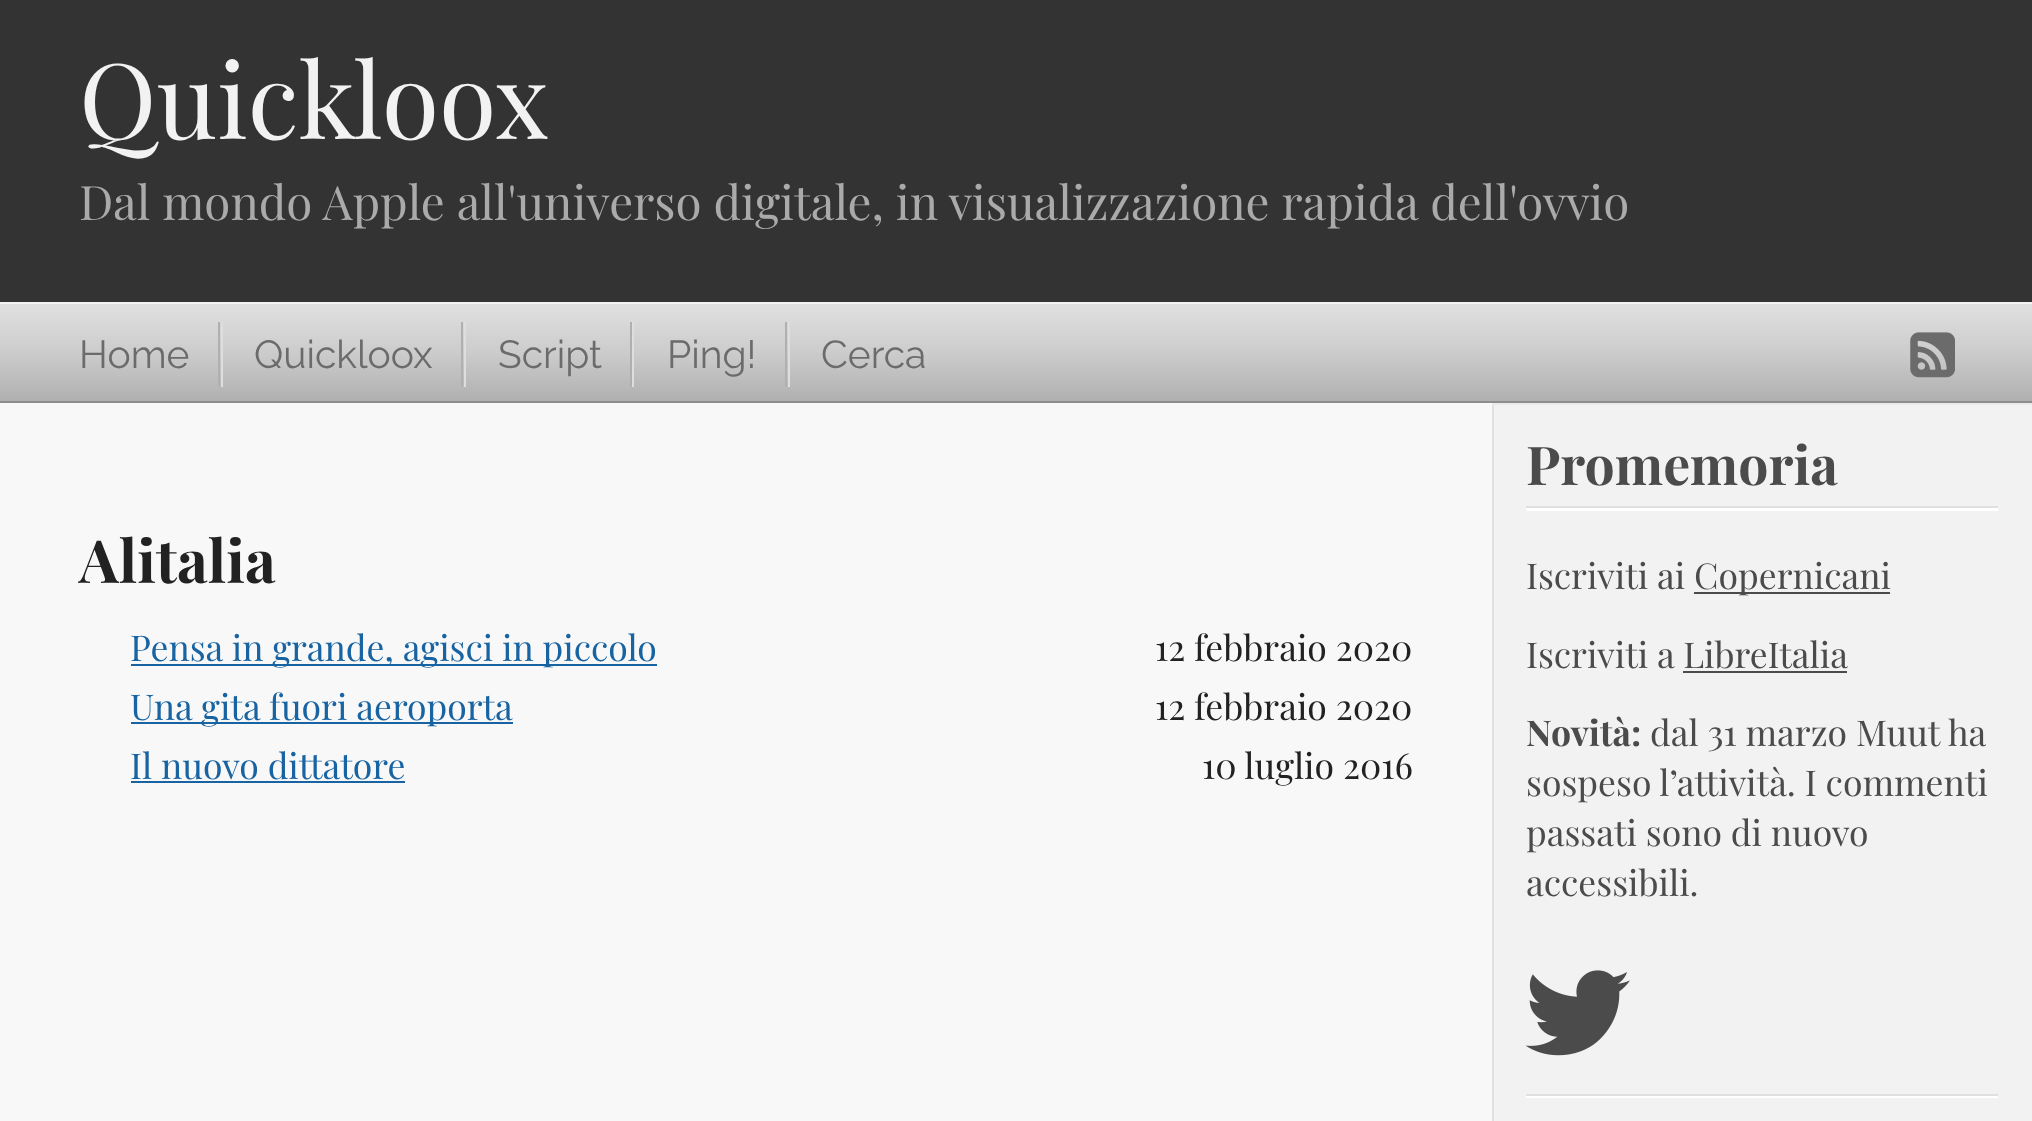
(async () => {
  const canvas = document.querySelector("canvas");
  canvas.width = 2032;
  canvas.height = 1121;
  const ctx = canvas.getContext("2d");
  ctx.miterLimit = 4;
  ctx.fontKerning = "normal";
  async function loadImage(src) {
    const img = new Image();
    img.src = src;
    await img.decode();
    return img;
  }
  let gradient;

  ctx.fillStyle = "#333333";
  ctx.fillRect(0, 0, 2032, 1121);
  gradient = ctx.createLinearGradient(1017, 304, 1017, 401);
  gradient.addColorStop(0, "#e0e0e0");
  gradient.addColorStop(0.5, "#cccccc");
  gradient.addColorStop(1, "#b0b0b0");
  ctx.fillStyle = gradient;
  ctx.fillRect(0, 304, 2032, 97);
  for (const [x, y, w, h, color] of [
    [0, 302, 2032, 2, "#f2f2f2"],
    [0, 401, 2032, 2, "#8c8c8c"],
    [218, 322, 2, 65, "#b0b0b0"],
    [221, 322, 2, 65, "#dedede"],
    [461, 322, 2, 65, "#b0b0b0"],
    [464, 322, 2, 65, "#dedede"],
    [630, 322, 2, 65, "#b0b0b0"],
    [632, 322, 2, 65, "#dedede"],
    [785, 322, 2, 65, "#b0b0b0"],
    [788, 322, 2, 65, "#dedede"],
  ]) {
    ctx.fillStyle = color;
    ctx.fillRect(x, y, w, h);
  }
  ctx.drawImage(await loadImage("img/1.png"), 1910, 332, 45, 46);
  for (const [x, y, w, h, color] of [
    [1494, 405, 538, 716, "#f2f2f2"],
    [0, 403, 1492, 718, "#f8f8f8"],
    [1492, 403, 2, 718, "#e0e0e0"],
    [131, 664, 526, 2, "#1863a1"],
    [131, 722, 382, 2, "#1863a1"],
    [131, 781, 274, 2, "#1863a1"],
    [1492, 403, 540, 2, "#eaeaea"],
    [1526, 508, 472, 3, "#ffffff"],
    [1526, 506, 472, 2, "#e0e0e0"],
    [1694, 592, 196, 2, "#4b4b4b"],
    [1683, 671, 164, 2, "#4b4b4b"],
    [1526, 1096, 472, 2, "#ffffff"],
    [1526, 1094, 472, 2, "#e0e0e0"],
  ]) {
    ctx.fillStyle = color;
    ctx.fillRect(x, y, w, h);
  }
  ctx.drawImage(await loadImage("img/2.png"), 1525, 970, 105, 86);
  ctx.font = "104.5px Playfair Display";
  ctx.fillStyle = "#f2f2f2";
  ctx.fillText("Quickloox", 79, 139);
  ctx.font = "47.5px Playfair Display";
  ctx.fillStyle = "#aaaaaa";
  ctx.fillText("Dal mondo Apple all'universo digitale, in visualizzazione rapida dell'ovvio", 79, 220);
  ctx.font = "39px Raleway";
  ctx.fillStyle = "#6b6b6b";
  for (const [text, x, y] of [
    ["Home", 79, 368],
    ["Quickloox", 254, 368],
    ["Script", 498, 368],
    ["Ping!", 667, 368],
    ["Cerca", 821, 368],
  ]) {
    ctx.fillText(text, x, y);
  }
  ctx.font = "bold 59.5px Playfair Display";
  ctx.fillStyle = "#222222";
  ctx.fillText("Alitalia", 79, 583);
  ctx.font = "35.6px Playfair Display";
  ctx.fillStyle = "#1863a1";
  ctx.fillText("Pensa in grande, agisci in piccolo", 130, 661);
  ctx.fillStyle = "#222222";
  ctx.fillText("12 febbraio 2020", 1155, 661);
  ctx.fillStyle = "#1863a1";
  ctx.fillText("Una gita fuori aeroporta", 130, 720);
  ctx.fillStyle = "#222222";
  ctx.fillText("12 febbraio 2020", 1155, 720);
  ctx.fillStyle = "#1863a1";
  ctx.fillText("Il nuovo dittatore", 130, 779);
  ctx.fillStyle = "#222222";
  ctx.fillText("10 luglio 2016", 1202, 779);
  ctx.font = "bold 53.5px Playfair Display";
  ctx.fillStyle = "#4b4b4b";
  ctx.fillText("Promemoria", 1526, 485);
  ctx.font = "35.6px Playfair Display";
  for (const [text, x, y] of [
    ["Iscriviti ai", 1526, 589],
    ["Copernicani", 1694, 589],
    ["Iscriviti a LibreItalia", 1526, 668],
  ]) {
    ctx.fillText(text, x, y);
  }
  ctx.font = "bold 35.6px Playfair Display";
  ctx.fillText("Novità:", 1526, 746);
  ctx.font = "35.6px Playfair Display";
  for (const [text, x, y] of [
    ["dal 31 marzo Muut ha", 1650, 746],
    ["sospeso l’attività. I commenti", 1526, 796],
    ["passati sono di nuovo", 1526, 846],
    ["accessibili.", 1526, 896],
  ]) {
    ctx.fillText(text, x, y);
  }
})();
